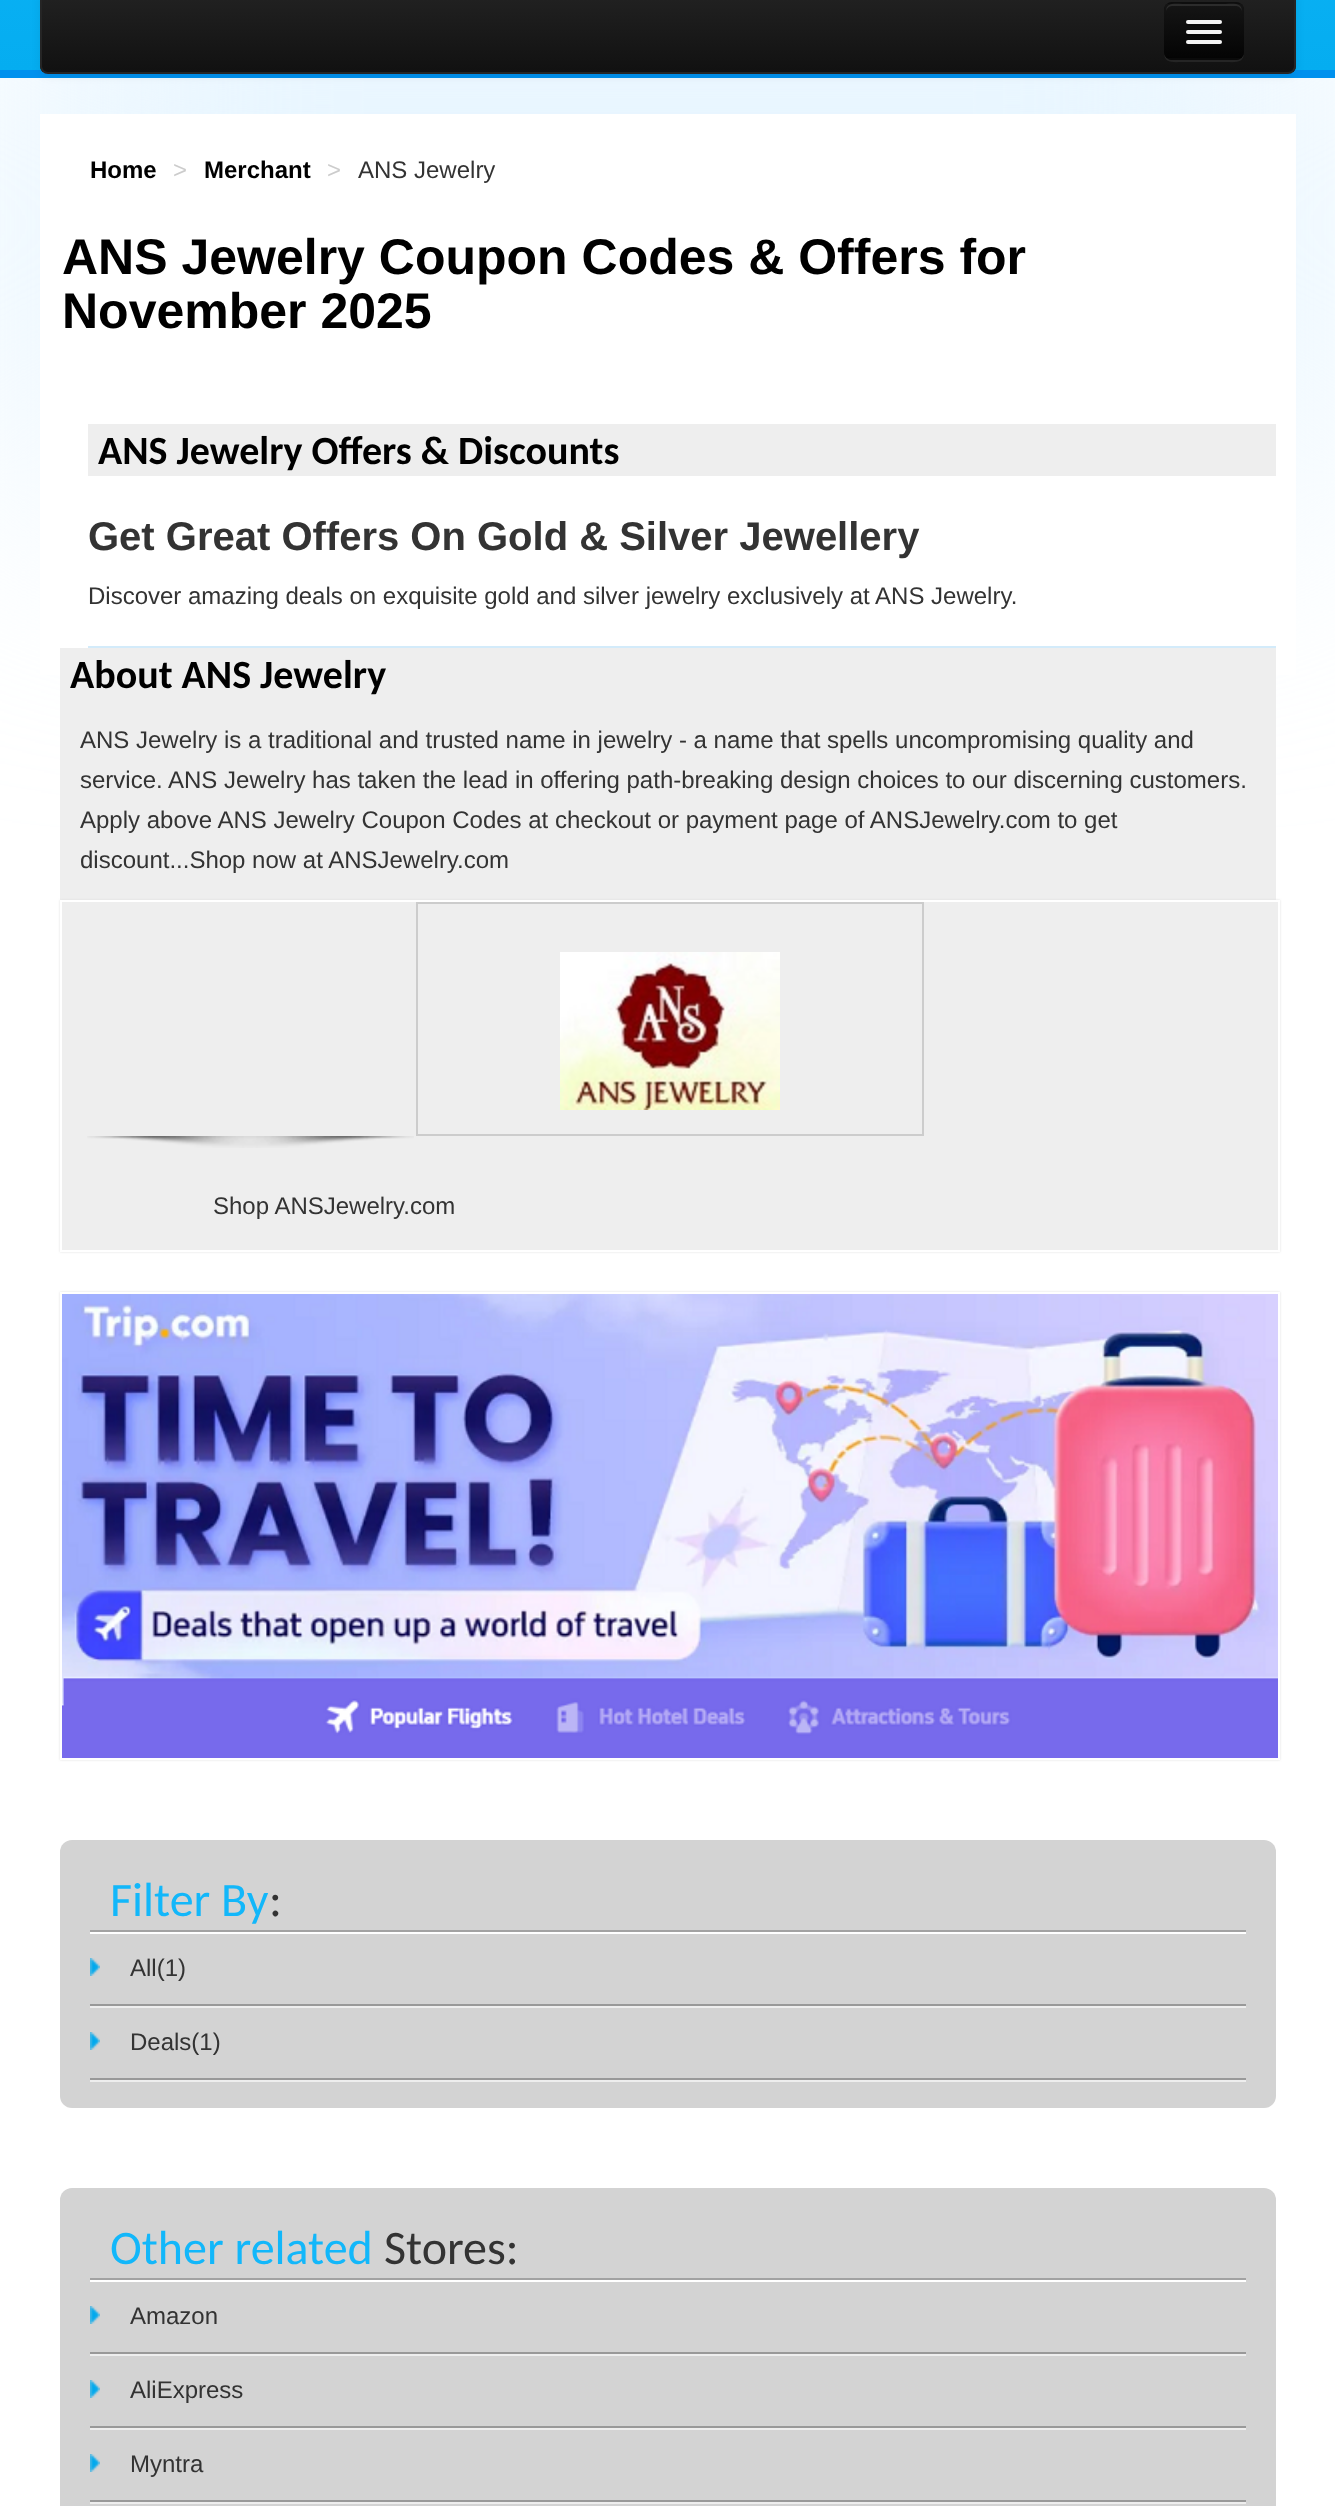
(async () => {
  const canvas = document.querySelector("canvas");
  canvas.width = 1335;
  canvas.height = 2506;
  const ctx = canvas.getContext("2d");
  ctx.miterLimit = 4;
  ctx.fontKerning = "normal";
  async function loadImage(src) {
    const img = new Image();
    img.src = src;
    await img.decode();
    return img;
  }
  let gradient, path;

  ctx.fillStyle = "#ffffff";
  ctx.fillRect(0, 0, 1335, 2506);
  ctx.fillStyle = "#e4f4ff";
  ctx.filter = "blur(150px)";
  ctx.beginPath();
  ctx.rect(0, -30, 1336, 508);
  ctx.fill();
  ctx.filter = "none";
  gradient = ctx.createLinearGradient(668, -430, 668, 70);
  gradient.addColorStop(0, "#17bcff");
  gradient.addColorStop(1, "#05adf0");
  ctx.fillStyle = gradient;
  ctx.fillRect(0, 0, 1335, 70);
  ctx.fillStyle = "#0091ee";
  ctx.fillRect(0, 70, 1335, 8);
  ctx.fillStyle = "rgba(0, 0, 0, 0.07)";
  ctx.filter = "blur(4px)";
  ctx.beginPath();
  ctx.roundRect(40, -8, 1256, 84, 8);
  ctx.fill();
  ctx.filter = "none";
  ctx.save();
  ctx.beginPath();
  ctx.roundRect(40, -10, 1256, 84, 8);
  ctx.clip();
  gradient = ctx.createLinearGradient(668, -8, 668, 72);
  gradient.addColorStop(0, "#222222");
  gradient.addColorStop(1, "#111111");
  ctx.fillStyle = gradient;
  ctx.fillRect(40, 0, 1256, 72);
  ctx.restore();
  ctx.beginPath();
  ctx.roundRect(41, -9, 1254, 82, 7);
  ctx.strokeStyle = "#252525";
  ctx.lineWidth = 2;
  ctx.stroke();
  ctx.fillStyle = "#252525";
  path = new Path2D("M1164 52C1164 64 1173 62 1183 62H1225C1235 62 1244 64 1244 52C1244 56 1240 60 1236 60H1172C1168 60 1164 56 1164 52Z");
  ctx.fill(path);
  ctx.fillStyle = "#0e0e0e";
  ctx.beginPath();
  ctx.roundRect(1164, 2, 80, 58, 8);
  ctx.fill();
  ctx.save();
  ctx.beginPath();
  ctx.roundRect(1164, 2, 80, 58, 8);
  ctx.clip();
  gradient = ctx.createLinearGradient(1204, 4, 1204, 58);
  gradient.addColorStop(0, "#151515");
  gradient.addColorStop(1, "#040404");
  ctx.fillStyle = gradient;
  ctx.fillRect(1164, 4, 80, 54);
  ctx.restore();
  ctx.fillStyle = "#2c2c2c";
  path = new Path2D("M1172 6H1236C1239 6 1242 9 1242 12C1242 2 1234 4 1225 4H1183C1174 4 1166 2 1166 12C1166 9 1169 6 1172 6Z");
  ctx.fill(path);
  path = new Path2D("M1241 57C1239.5 58.5 1238 59 1236 59H1172C1170 59 1168.5 58.5 1167 57");
  ctx.strokeStyle = "rgba(0, 0, 0, 0.25)";
  ctx.stroke(path);
  ctx.fillStyle = "#0b0b0b";
  path = new Path2D("M1186.5 23C1184 27 1193 26 1193.5 26H1214.5C1215 26 1224 27 1221.5 23C1221.5 23.5 1220.5 24 1220 24H1188C1187.5 24 1186.5 23.5 1186.5 23Z");
  ctx.fill(path);
  ctx.fillStyle = "#f5f5f5";
  ctx.beginPath();
  ctx.roundRect(1186, 20, 36, 4, 2);
  ctx.fill();
  ctx.fillStyle = "#080808";
  path = new Path2D("M1186.5 33C1184 37 1193 36 1193.5 36H1214.5C1215 36 1224 37 1221.5 33C1221.5 33.5 1220.5 34 1220 34H1188C1187.5 34 1186.5 33.5 1186.5 33Z");
  ctx.fill(path);
  ctx.fillStyle = "#f5f5f5";
  ctx.beginPath();
  ctx.roundRect(1186, 30, 36, 4, 2);
  ctx.fill();
  ctx.beginPath();
  ctx.roundRect(1186, 40, 36, 4, 2);
  ctx.fill();
  for (const [x, y, w, h, color] of [
    [40, 114, 1256, 561, "#ffffff"],
    [88, 424, 1188, 52, "#eeeeee"],
    [88, 646, 1188, 2, "#d3ebfa"],
    [60, 648, 1216, 252, "#eeeeee"],
  ]) {
    ctx.fillStyle = color;
    ctx.fillRect(x, y, w, h);
  }
  ctx.fillStyle = "#dddddd";
  ctx.filter = "blur(1px)";
  ctx.beginPath();
  ctx.rect(60, 900, 1220, 352);
  ctx.fill();
  ctx.filter = "none";
  ctx.fillStyle = "#eeeeee";
  ctx.beginPath();
  ctx.rect(61, 901, 1218, 350);
  ctx.fill();
  ctx.strokeStyle = "#ffffff";
  ctx.stroke();
  ctx.strokeStyle = "#cccccc";
  ctx.strokeRect(417, 903, 506, 232);
  ctx.drawImage(await loadImage("img/1.png"), 560, 952, 220, 158);
  ctx.drawImage(await loadImage("img/2.png"), 87, 1136, 327, 12);
  ctx.fillStyle = "#dddddd";
  ctx.filter = "blur(1px)";
  ctx.beginPath();
  ctx.rect(60, 1292, 1220, 468);
  ctx.fill();
  ctx.filter = "none";
  ctx.strokeStyle = "#ffffff";
  ctx.strokeRect(61, 1293, 1218, 466);
  ctx.drawImage(await loadImage("img/3.png"), 62, 1294, 1216, 464);
  ctx.fillStyle = "#d3d3d3";
  ctx.beginPath();
  ctx.roundRect(60, 1840, 1216, 268, 12);
  ctx.fill();
  ctx.fillStyle = "#a2a2a2";
  ctx.fillRect(90, 1930, 1156, 2);
  ctx.fillStyle = "#ffffff";
  ctx.fillRect(90, 1932, 1156, 2);
  ctx.drawImage(await loadImage("img/4.png"), 90, 1958, 10, 18);
  ctx.fillStyle = "#999999";
  ctx.fillRect(90, 2004, 1156, 2);
  ctx.fillStyle = "#eeeeee";
  ctx.fillRect(90, 2006, 1156, 2);
  ctx.drawImage(await loadImage("img/4.png"), 90, 2032, 10, 18);
  ctx.fillStyle = "#999999";
  ctx.fillRect(90, 2078, 1156, 2);
  ctx.fillStyle = "#eeeeee";
  ctx.fillRect(90, 2080, 1156, 2);
  ctx.fillStyle = "#d3d3d3";
  ctx.beginPath();
  ctx.roundRect(60, 2188, 1216, 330, 12);
  ctx.fill();
  ctx.fillStyle = "#a2a2a2";
  ctx.fillRect(90, 2278, 1156, 2);
  ctx.fillStyle = "#ffffff";
  ctx.fillRect(90, 2280, 1156, 2);
  ctx.drawImage(await loadImage("img/4.png"), 90, 2306, 10, 18);
  ctx.fillStyle = "#999999";
  ctx.fillRect(90, 2352, 1156, 2);
  ctx.fillStyle = "#eeeeee";
  ctx.fillRect(90, 2354, 1156, 2);
  ctx.drawImage(await loadImage("img/4.png"), 90, 2380, 10, 18);
  ctx.fillStyle = "#999999";
  ctx.fillRect(90, 2426, 1156, 2);
  ctx.fillStyle = "#eeeeee";
  ctx.fillRect(90, 2428, 1156, 2);
  ctx.drawImage(await loadImage("img/4.png"), 90, 2454, 10, 18);
  ctx.fillStyle = "#999999";
  ctx.fillRect(90, 2500, 1156, 2);
  ctx.fillStyle = "#eeeeee";
  ctx.fillRect(90, 2502, 1156, 2);
  ctx.font = "bold 24px Liberation Sans";
  ctx.fillStyle = "#000000";
  ctx.fillText("Home", 90, 178);
  ctx.font = "24px Liberation Sans";
  ctx.fillStyle = "#cccccc";
  ctx.fillText(">", 173, 178);
  ctx.font = "bold 24px Liberation Sans";
  ctx.fillStyle = "#000000";
  ctx.fillText("Merchant", 204, 178);
  ctx.font = "24px Liberation Sans";
  ctx.fillStyle = "#cccccc";
  ctx.fillText(">", 327, 178);
  ctx.fillStyle = "#333333";
  ctx.fillText("ANS Jewelry", 358, 178);
  ctx.font = "bold 50px Liberation Sans";
  ctx.fillStyle = "#000000";
  ctx.fillText("ANS Jewelry Coupon Codes & Offers for", 62, 274);
  ctx.fillText("November 2025", 62, 328);
  ctx.font = "bold 40px Carlito";
  ctx.fillText("ANS Jewelry Offers & Discounts", 98, 464);
  ctx.font = "bold 40px Liberation Sans";
  ctx.fillStyle = "#333333";
  ctx.fillText("Get Great Offers On Gold & Silver Jewellery", 88, 550);
  ctx.font = "24px Liberation Sans";
  ctx.fillText("Discover amazing deals on exquisite gold and silver jewelry exclusively at ANS Jewelry.", 88, 604);
  ctx.font = "bold 40px Carlito";
  ctx.fillStyle = "#000000";
  ctx.fillText("About ANS Jewelry", 70, 688);
  ctx.font = "24px Liberation Sans";
  ctx.fillStyle = "#333333";
  for (const [text, x, y] of [
    ["ANS Jewelry is a traditional and trusted name in jewelry - a name that spells uncompromising quality and", 80, 748],
    ["service. ANS Jewelry has taken the lead in offering path-breaking design choices to our discerning customers.", 80, 788],
    ["Apply above ANS Jewelry Coupon Codes at checkout or payment page of ANSJewelry.com to get", 80, 828],
    ["discount...Shop now at ANSJewelry.com", 80, 868],
    ["Shop ANSJewelry.com", 213, 1214],
  ]) {
    ctx.fillText(text, x, y);
  }
  ctx.font = "48px Carlito";
  ctx.fillStyle = "#12b7fa";
  ctx.fillText("Filter By", 110, 1916);
  ctx.fillStyle = "#333333";
  ctx.fillText(":", 269, 1916);
  ctx.font = "24px Liberation Sans";
  ctx.fillText("All(1)", 130, 1976);
  ctx.fillText("Deals(1)", 130, 2050);
  ctx.font = "48px Carlito";
  ctx.fillStyle = "#12b7fa";
  ctx.fillText("Other related", 110, 2264);
  ctx.fillStyle = "#333333";
  ctx.fillText("Stores:", 384, 2264);
  ctx.font = "24px Liberation Sans";
  for (const [text, x, y] of [
    ["Amazon", 130, 2324],
    ["AliExpress", 130, 2398],
    ["Myntra", 130, 2472],
  ]) {
    ctx.fillText(text, x, y);
  }
})();
